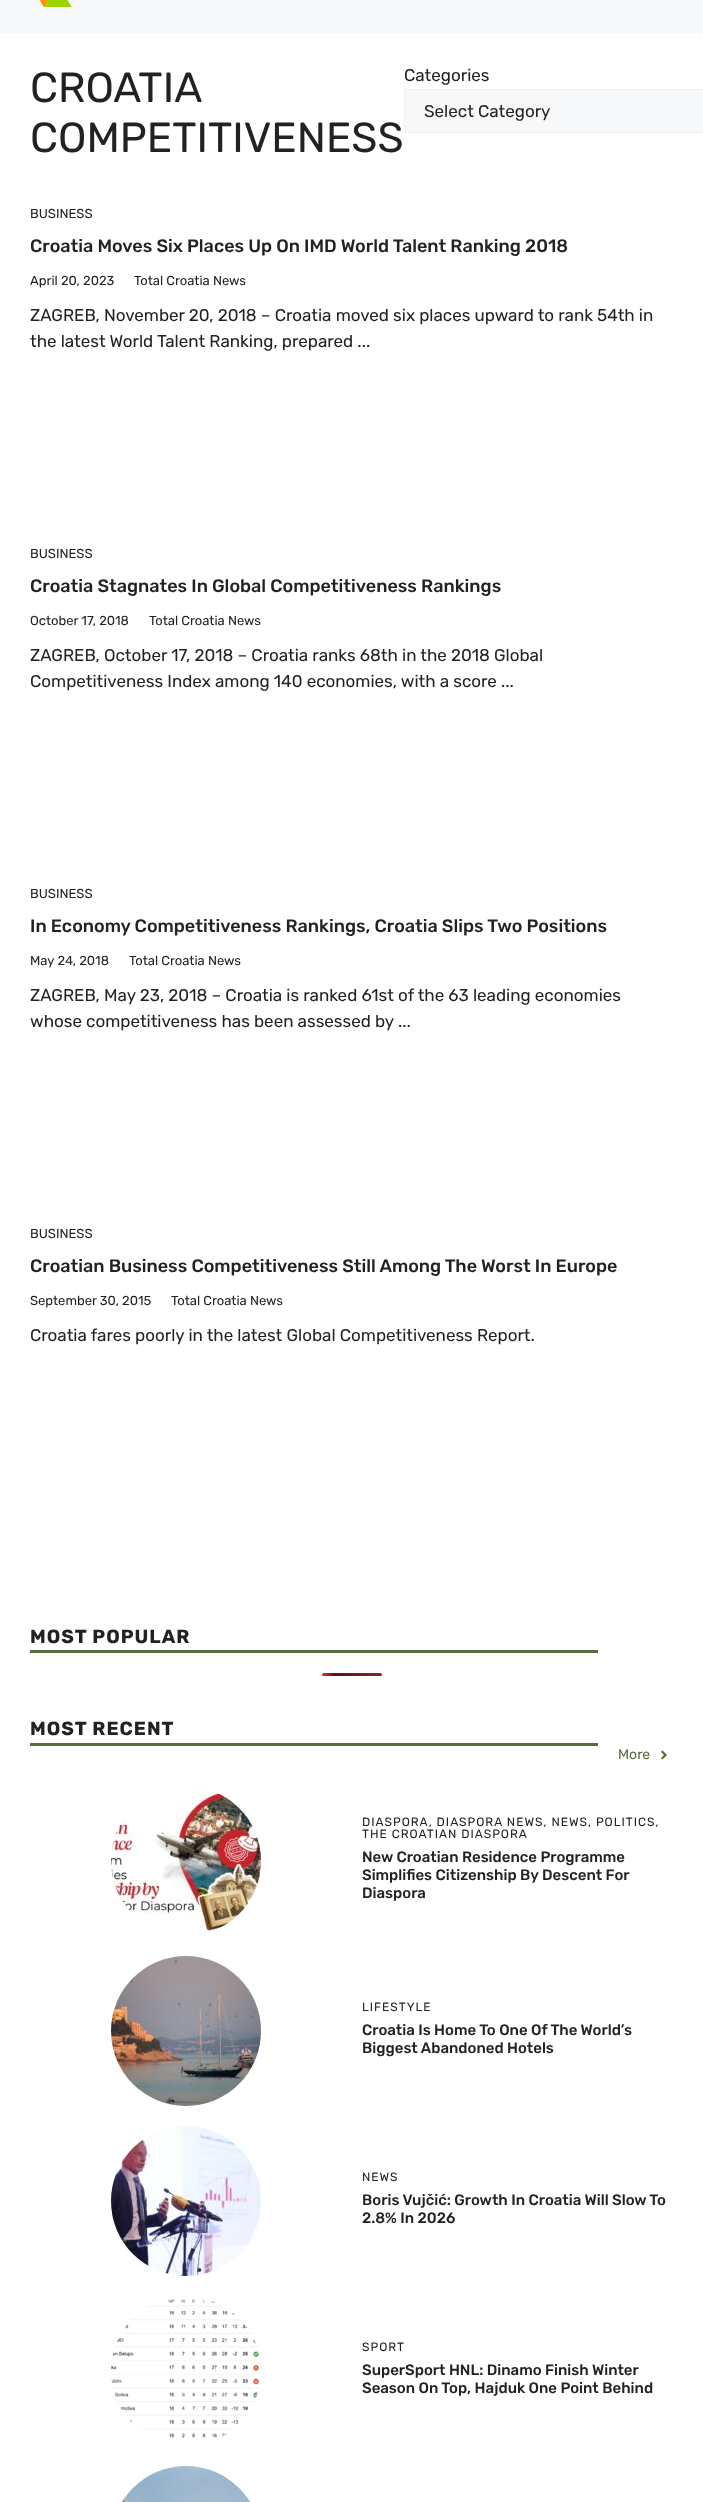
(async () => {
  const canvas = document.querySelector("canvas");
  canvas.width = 703;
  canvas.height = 2502;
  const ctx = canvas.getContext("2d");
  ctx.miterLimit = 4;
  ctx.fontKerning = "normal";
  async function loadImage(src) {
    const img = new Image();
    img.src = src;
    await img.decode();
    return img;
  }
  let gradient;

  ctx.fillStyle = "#ffffff";
  ctx.fillRect(0, 0, 703, 2502);
  ctx.fillStyle = "#f7f8f9";
  ctx.fillRect(0, 0, 703, 33);
  ctx.drawImage(await loadImage("img/1.png"), 39, 0, 33, 7);
  ctx.beginPath();
  ctx.rect(404.5, 89.5, 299, 43);
  ctx.fill();
  ctx.strokeStyle = "#f0f0f0";
  ctx.stroke();
  ctx.fillStyle = "#566e3d";
  ctx.fillRect(30, 1650, 568, 3);
  gradient = ctx.createLinearGradient(322, 1675, 442, 1675);
  gradient.addColorStop(0, "#dd3737");
  gradient.addColorStop(0.1, "#571313");
  gradient.addColorStop(1, "#dd3737");
  ctx.fillStyle = gradient;
  ctx.beginPath();
  ctx.roundRect(322, 1673, 60, 3, 1.5);
  ctx.fill();
  ctx.fillStyle = "#566e3d";
  ctx.fillRect(30, 1743, 568, 3);
  ctx.drawImage(await loadImage("img/2.png"), 661, 1750, 6, 10);
  ctx.drawImage(await loadImage("img/3.png"), 111, 1786, 150, 146);
  ctx.drawImage(await loadImage("img/4.png"), 111, 1956, 150, 150);
  ctx.drawImage(await loadImage("img/5.png"), 111, 2126, 150, 150);
  ctx.drawImage(await loadImage("img/6.png"), 111, 2299, 150, 139);
  ctx.drawImage(await loadImage("img/7.png"), 122, 2466, 128, 36);
  ctx.font = "42px Rubik";
  ctx.fillStyle = "#222222";
  ctx.fillText("CROATIA", 30, 102);
  ctx.fillText("COMPETITIVENESS", 30, 152);
  ctx.font = "17px Rubik";
  ctx.fillText("Categories", 404, 81);
  ctx.fillText("Select Category", 424, 117);
  ctx.font = "13px Rubik";
  ctx.fillText("BUSINESS", 30, 218);
  ctx.font = "500 18px Rubik";
  ctx.fillText("Croatia Moves Six Places Up On IMD World Talent Ranking 2018", 30, 252);
  ctx.font = "13px Rubik";
  ctx.fillText("April 20, 2023", 30, 285);
  ctx.fillText("Total Croatia News", 134, 285);
  ctx.font = "17px Rubik";
  ctx.fillText("ZAGREB, November 20, 2018 – Croatia moved six places upward to rank 54th in", 30, 321);
  ctx.fillText("the latest World Talent Ranking, prepared ...", 30, 347);
  ctx.font = "13px Rubik";
  ctx.fillText("BUSINESS", 30, 558);
  ctx.font = "500 18px Rubik";
  ctx.fillText("Croatia Stagnates In Global Competitiveness Rankings", 30, 592);
  ctx.font = "13px Rubik";
  ctx.fillText("October 17, 2018", 30, 625);
  ctx.fillText("Total Croatia News", 149, 625);
  ctx.font = "17px Rubik";
  ctx.fillText("ZAGREB, October 17, 2018 – Croatia ranks 68th in the 2018 Global", 30, 661);
  ctx.fillText("Competitiveness Index among 140 economies, with a score ...", 30, 687);
  ctx.font = "13px Rubik";
  ctx.fillText("BUSINESS", 30, 898);
  ctx.font = "500 18px Rubik";
  ctx.fillText("In Economy Competitiveness Rankings, Croatia Slips Two Positions", 30, 932);
  ctx.font = "13px Rubik";
  ctx.fillText("May 24, 2018", 30, 965);
  ctx.fillText("Total Croatia News", 129, 965);
  ctx.font = "17px Rubik";
  ctx.fillText("ZAGREB, May 23, 2018 – Croatia is ranked 61st of the 63 leading economies", 30, 1001);
  ctx.fillText("whose competitiveness has been assessed by ...", 30, 1027);
  ctx.font = "13px Rubik";
  ctx.fillText("BUSINESS", 30, 1238);
  ctx.font = "500 18px Rubik";
  ctx.fillText("Croatian Business Competitiveness Still Among The Worst In Europe", 30, 1272);
  ctx.font = "13px Rubik";
  ctx.fillText("September 30, 2015", 30, 1305);
  ctx.fillText("Total Croatia News", 171, 1305);
  ctx.font = "17px Rubik";
  ctx.fillText("Croatia fares poorly in the latest Global Competitiveness Report.", 30, 1341);
  ctx.letterSpacing = "1px";
  ctx.font = "bold 19px Rubik";
  ctx.fillText("MOST POPULAR", 30, 1643);
  ctx.fillText("MOST RECENT", 30, 1735);
  ctx.letterSpacing = "0px";
  ctx.font = "14px Rubik";
  ctx.fillStyle = "#566e3d";
  ctx.fillText("More", 618, 1759);
  ctx.letterSpacing = "1px";
  ctx.font = "12px Rubik";
  ctx.fillStyle = "#222222";
  ctx.fillText("DIASPORA, DIASPORA NEWS, NEWS, POLITICS,", 362, 1826);
  ctx.fillText("THE CROATIAN DIASPORA", 362, 1838);
  ctx.letterSpacing = "0px";
  ctx.font = "500 15px Rubik";
  for (const [text, x, y] of [
    ["New Croatian Residence Programme", 362, 1862],
    ["Simplifies Citizenship By Descent For", 362, 1880],
    ["Diaspora", 362, 1898],
  ]) {
    ctx.fillText(text, x, y);
  }
  ctx.letterSpacing = "1px";
  ctx.font = "12px Rubik";
  ctx.fillText("LIFESTYLE", 362, 2011);
  ctx.letterSpacing = "0px";
  ctx.font = "500 15px Rubik";
  ctx.fillText("Croatia Is Home To One Of The World’s", 362, 2035);
  ctx.fillText("Biggest Abandoned Hotels", 362, 2053);
  ctx.letterSpacing = "1px";
  ctx.font = "12px Rubik";
  ctx.fillText("NEWS", 362, 2181);
  ctx.letterSpacing = "0px";
  ctx.font = "500 15px Rubik";
  ctx.fillText("Boris Vujčić: Growth In Croatia Will Slow To", 362, 2205);
  ctx.fillText("2.8% In 2026", 362, 2223);
  ctx.letterSpacing = "1px";
  ctx.font = "12px Rubik";
  ctx.fillText("SPORT", 362, 2351);
  ctx.letterSpacing = "0px";
  ctx.font = "500 15px Rubik";
  ctx.fillText("SuperSport HNL: Dinamo Finish Winter", 362, 2375);
  ctx.fillText("Season On Top, Hajduk One Point Behind", 362, 2393);
})();
